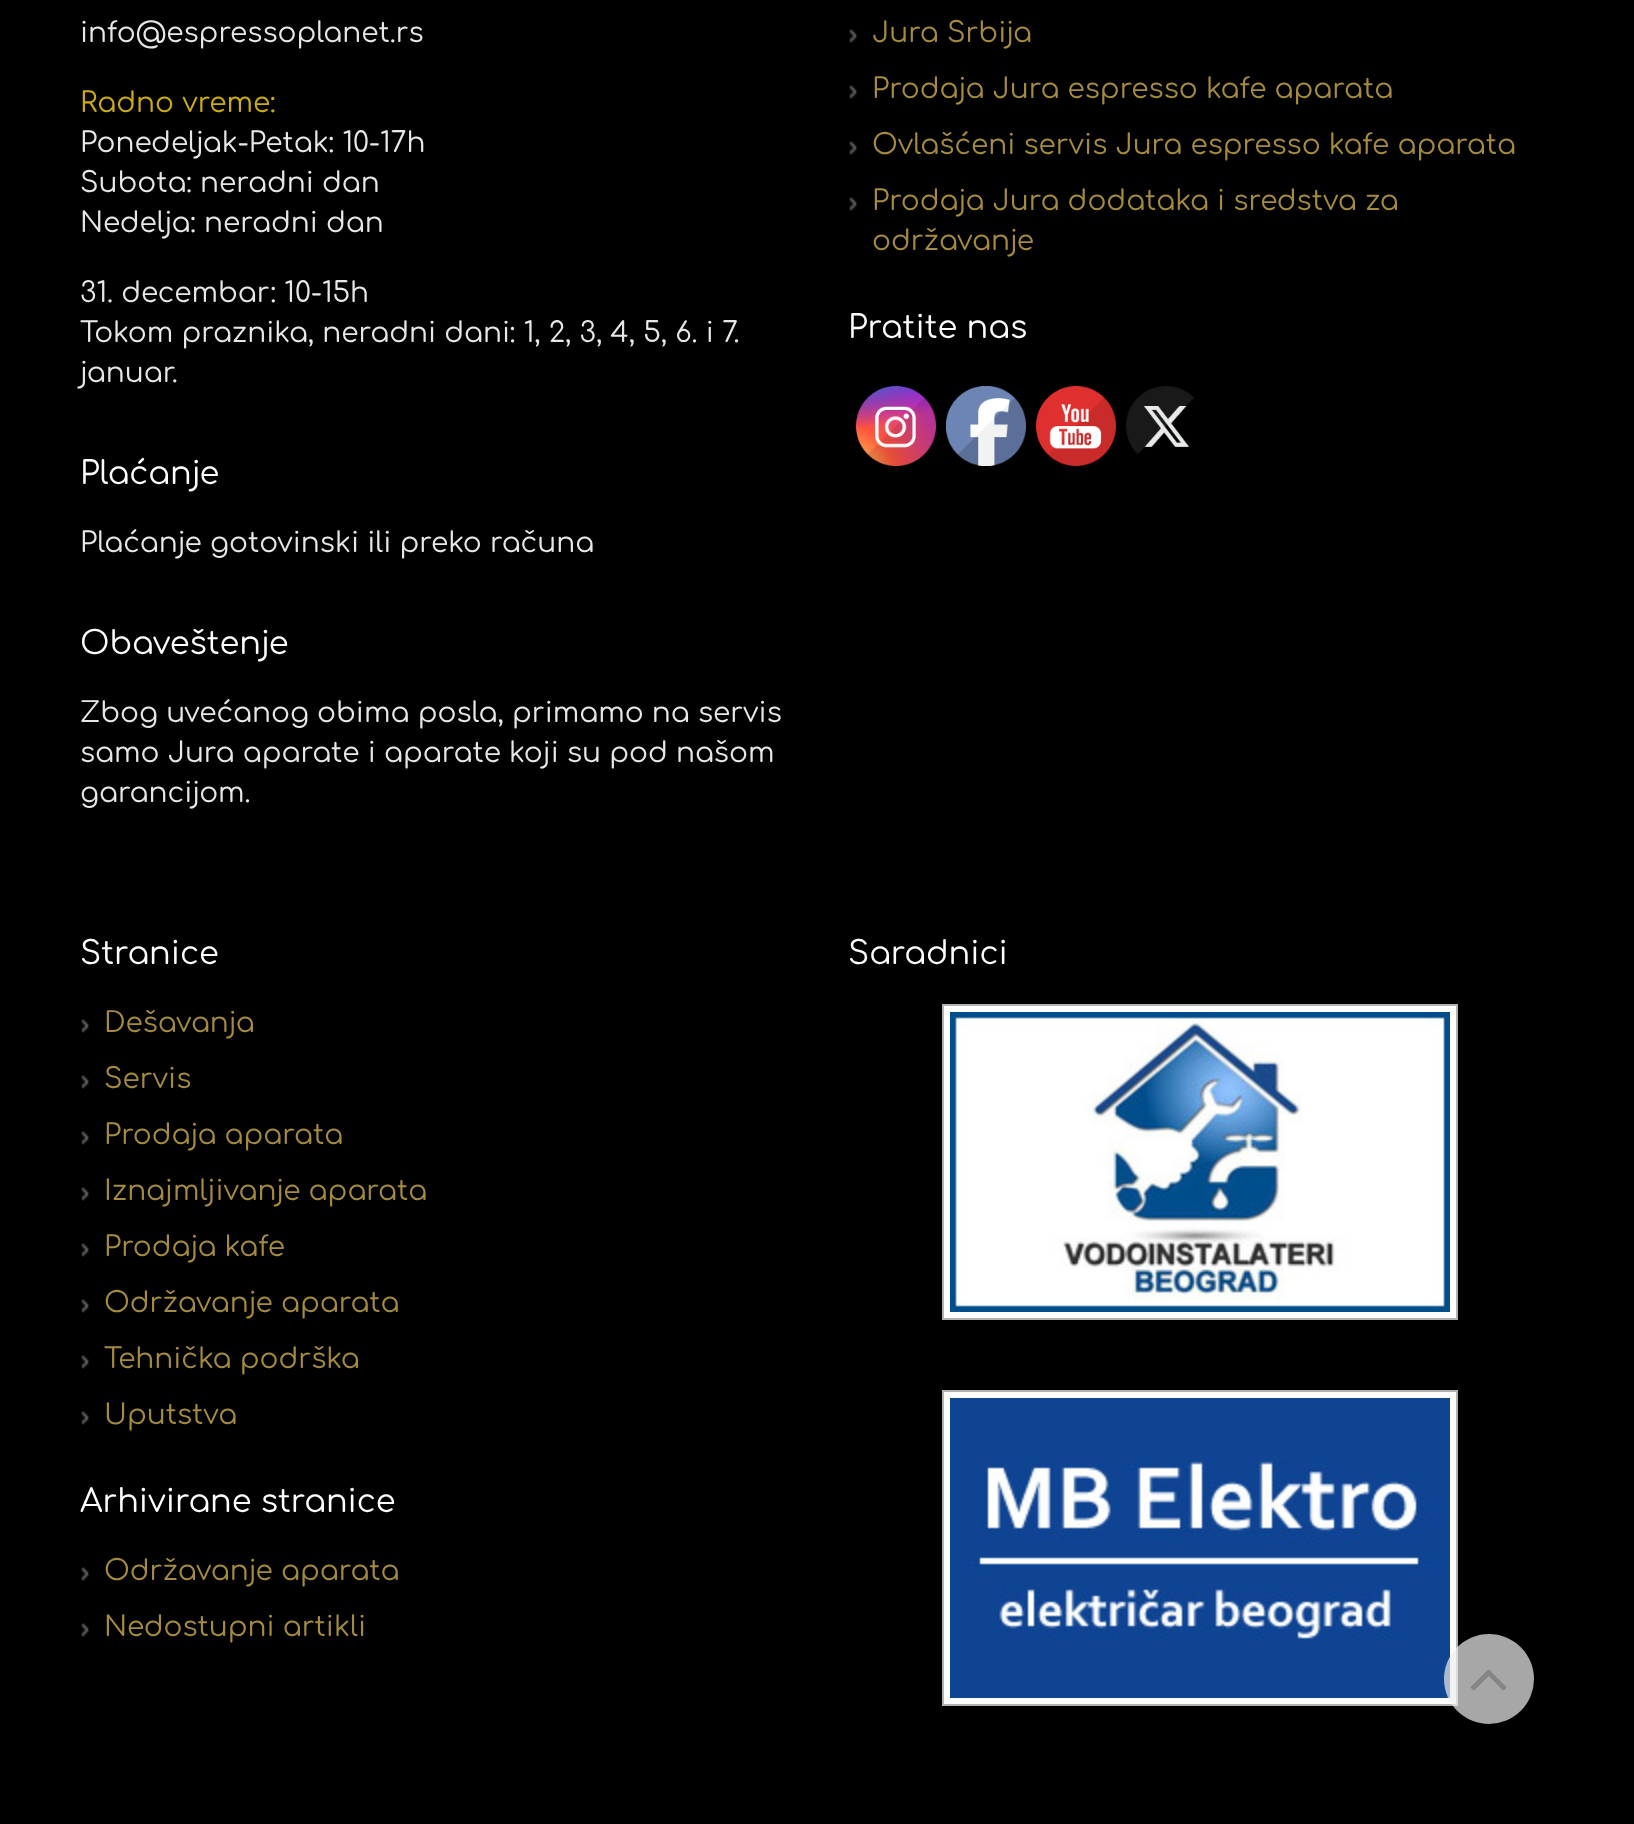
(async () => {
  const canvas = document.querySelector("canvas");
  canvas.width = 1634;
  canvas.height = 1824;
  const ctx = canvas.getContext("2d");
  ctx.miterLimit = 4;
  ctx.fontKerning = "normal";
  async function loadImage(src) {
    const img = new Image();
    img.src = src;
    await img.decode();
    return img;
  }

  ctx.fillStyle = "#000000";
  ctx.fillRect(0, 0, 1634, 1824);
  ctx.drawImage(await loadImage("img/1.png"), 849, 29, 8, 14);
  ctx.drawImage(await loadImage("img/1.png"), 849, 85, 8, 14);
  ctx.drawImage(await loadImage("img/1.png"), 849, 141, 8, 14);
  ctx.drawImage(await loadImage("img/1.png"), 849, 197, 8, 14);
  ctx.drawImage(await loadImage("img/2.png"), 856, 386, 80, 80);
  ctx.drawImage(await loadImage("img/3.png"), 946, 386, 80, 80);
  ctx.drawImage(await loadImage("img/4.png"), 1036, 386, 80, 80);
  ctx.drawImage(await loadImage("img/5.png"), 1126, 386, 68, 68);
  ctx.drawImage(await loadImage("img/1.png"), 81, 1019, 8, 14);
  ctx.drawImage(await loadImage("img/1.png"), 81, 1075, 8, 14);
  ctx.drawImage(await loadImage("img/1.png"), 81, 1131, 8, 14);
  ctx.drawImage(await loadImage("img/1.png"), 81, 1187, 8, 14);
  ctx.drawImage(await loadImage("img/1.png"), 81, 1243, 8, 14);
  ctx.drawImage(await loadImage("img/1.png"), 81, 1299, 8, 14);
  ctx.drawImage(await loadImage("img/1.png"), 81, 1355, 8, 14);
  ctx.drawImage(await loadImage("img/1.png"), 81, 1411, 8, 14);
  ctx.drawImage(await loadImage("img/1.png"), 81, 1567, 8, 14);
  ctx.drawImage(await loadImage("img/1.png"), 81, 1623, 8, 14);
  ctx.fillStyle = "#ffffff";
  ctx.beginPath();
  ctx.rect(943, 1005, 514, 314);
  ctx.fill();
  ctx.strokeStyle = "#b2b2b2";
  ctx.lineWidth = 2;
  ctx.stroke();
  ctx.drawImage(await loadImage("img/6.png"), 950, 1012, 500, 300);
  ctx.beginPath();
  ctx.rect(943, 1391, 514, 314);
  ctx.fill();
  ctx.stroke();
  ctx.drawImage(await loadImage("img/7.png"), 950, 1398, 500, 300);
  ctx.fillStyle = "rgba(238, 238, 238, 0.7)";
  ctx.beginPath();
  ctx.arc(1489, 1679, 45, 0, Math.PI * 2);
  ctx.fill();
  ctx.drawImage(await loadImage("img/8.png"), 1470, 1669, 37, 22);
  ctx.font = "28px Comfortaa";
  ctx.fillStyle = "#e7e7e7";
  ctx.fillText("info@espressoplanet.rs", 80, 42);
  ctx.fillStyle = "#ccac0e";
  ctx.fillText("Radno vreme:", 80, 112);
  ctx.fillStyle = "#e7e7e7";
  for (const [text, x, y] of [
    ["Ponedeljak-Petak: 10-17h", 80, 152],
    ["Subota: neradni dan", 80, 192],
    ["Nedelja: neradni dan", 80, 232],
    ["31. decembar: 10-15h", 80, 302],
    ["Tokom praznika, neradni dani: 1, 2, 3, 4, 5, 6. i 7.", 80, 342],
    ["januar.", 80, 382],
  ]) {
    ctx.fillText(text, x, y);
  }
  ctx.font = "32px Comfortaa";
  ctx.fillStyle = "#ffffff";
  ctx.fillText("Plaćanje", 80, 484);
  ctx.font = "28px Comfortaa";
  ctx.fillStyle = "#e7e7e7";
  ctx.fillText("Plaćanje gotovinski ili preko računa", 80, 552);
  ctx.font = "32px Comfortaa";
  ctx.fillStyle = "#ffffff";
  ctx.fillText("Obaveštenje", 80, 654);
  ctx.font = "28px Comfortaa";
  ctx.fillStyle = "#e7e7e7";
  for (const [text, x, y] of [
    ["Zbog uvećanog obima posla, primamo na servis", 80, 722],
    ["samo Jura aparate i aparate koji su pod našom", 80, 762],
    ["garancijom.", 80, 802],
  ]) {
    ctx.fillText(text, x, y);
  }
  ctx.fillStyle = "#a48b40";
  for (const [text, x, y] of [
    ["Jura Srbija", 872, 42],
    ["Prodaja Jura espresso kafe aparata", 872, 98],
    ["Ovlašćeni servis Jura espresso kafe aparata", 872, 154],
    ["Prodaja Jura dodataka i sredstva za", 872, 210],
    ["održavanje", 872, 250],
  ]) {
    ctx.fillText(text, x, y);
  }
  ctx.font = "32px Comfortaa";
  ctx.fillStyle = "#ffffff";
  ctx.fillText("Pratite nas", 848, 338);
  ctx.fillText("Stranice", 80, 964);
  ctx.font = "28px Comfortaa";
  ctx.fillStyle = "#a48b40";
  for (const [text, x, y] of [
    ["Dešavanja", 104, 1032],
    ["Servis", 104, 1088],
    ["Prodaja aparata", 104, 1144],
    ["Iznajmljivanje aparata", 104, 1200],
    ["Prodaja kafe", 104, 1256],
    ["Održavanje aparata", 104, 1312],
    ["Tehnička podrška", 104, 1368],
    ["Uputstva", 104, 1424],
  ]) {
    ctx.fillText(text, x, y);
  }
  ctx.font = "32px Comfortaa";
  ctx.fillStyle = "#ffffff";
  ctx.fillText("Arhivirane stranice", 80, 1512);
  ctx.font = "28px Comfortaa";
  ctx.fillStyle = "#a48b40";
  ctx.fillText("Održavanje aparata", 104, 1580);
  ctx.fillText("Nedostupni artikli", 104, 1636);
  ctx.font = "32px Comfortaa";
  ctx.fillStyle = "#ffffff";
  ctx.fillText("Saradnici", 848, 964);
})();
